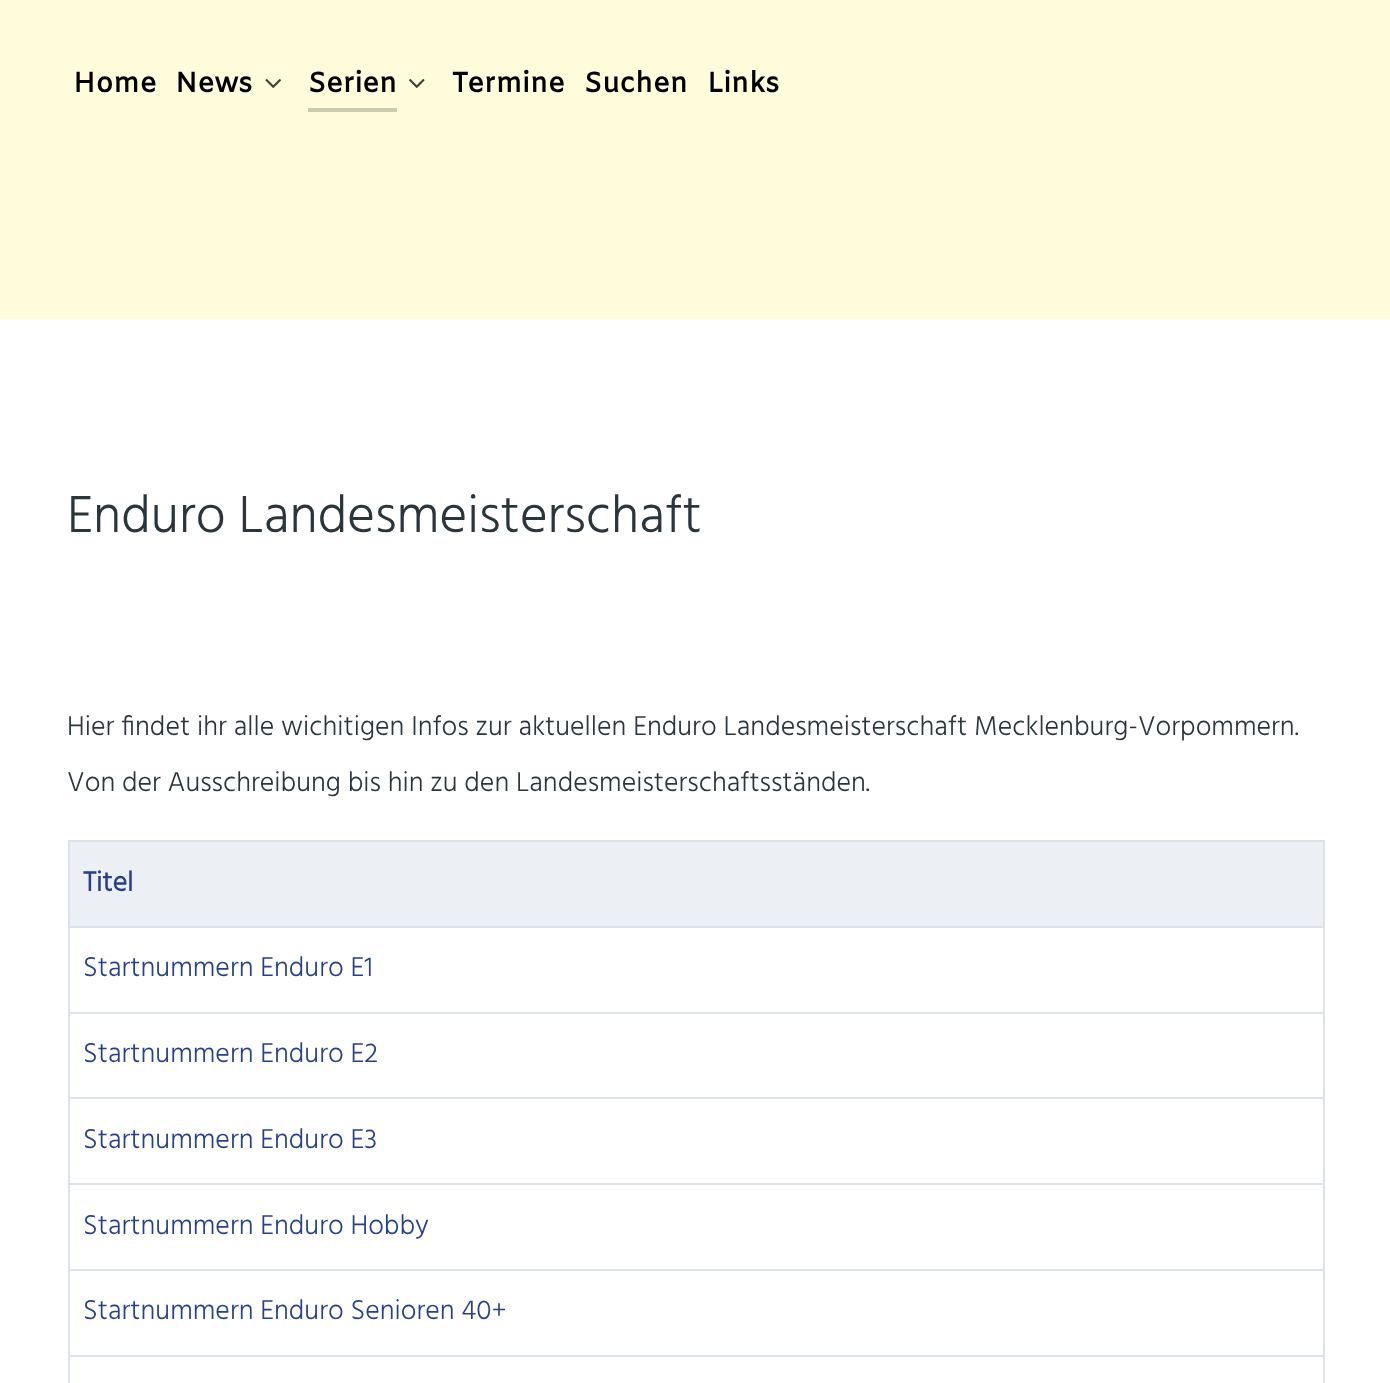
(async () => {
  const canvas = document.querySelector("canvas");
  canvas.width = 1390;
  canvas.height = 1383;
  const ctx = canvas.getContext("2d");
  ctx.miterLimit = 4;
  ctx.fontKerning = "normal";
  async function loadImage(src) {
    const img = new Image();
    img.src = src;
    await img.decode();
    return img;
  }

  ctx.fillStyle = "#ffffff";
  ctx.fillRect(0, 0, 1390, 1383);
  ctx.fillStyle = "#fffcdb";
  ctx.fillRect(0, 0, 1390, 319);
  ctx.drawImage(await loadImage("img/1.png"), 265, 79, 16, 9);
  ctx.fillStyle = "#cccaaf";
  ctx.fillRect(308, 108, 89, 4);
  ctx.drawImage(await loadImage("img/2.png"), 409, 79, 16, 9);
  for (const [x, y, w, h, color] of [
    [68, 840, 1257, 2, "#dce2e9"],
    [1323, 840, 2, 543, "#dce2e9"],
    [68, 840, 2, 543, "#dce2e9"],
    [70, 842, 1253, 84, "#eceff3"],
    [68, 926, 1257, 2, "#dce2e9"],
    [68, 1012, 1257, 2, "#dce2e9"],
    [68, 1097, 1257, 2, "#dce2e9"],
    [68, 1183, 1257, 2, "#dce2e9"],
    [68, 1269, 1257, 2, "#dce2e9"],
    [68, 1355, 1257, 2, "#dce2e9"],
  ]) {
    ctx.fillStyle = color;
    ctx.fillRect(x, y, w, h);
  }
  ctx.font = "bold 28px Amiko";
  ctx.fillStyle = "#000000";
  for (const [text, x, y] of [
    ["Home", 73, 92],
    ["News", 175, 92],
    ["Serien", 308, 92],
    ["Termine", 451, 92],
    ["Suchen", 584, 92],
    ["Links", 707, 92],
  ]) {
    ctx.fillText(text, x, y);
  }
  ctx.font = "300 53.25px Hind";
  ctx.fillStyle = "#2a363b";
  ctx.fillText("Enduro Landesmeisterschaft", 67, 532);
  ctx.wordSpacing = "0.1px";
  ctx.font = "300 28px Hind";
  ctx.fillText("Hier findet ihr alle wichitigen Infos zur aktuellen Enduro Landesmeisterschaft Mecklenburg-Vorpommern.", 67, 735);
  ctx.wordSpacing = "0px";
  ctx.fillText("Von der Ausschreibung bis hin zu den Landesmeisterschaftsständen.", 67, 791);
  ctx.font = "bold 28px Hind";
  ctx.fillStyle = "#27408b";
  ctx.fillText("Titel", 83, 891);
  ctx.font = "300 28px Hind";
  for (const [text, x, y] of [
    ["Startnummern Enduro E1", 83, 976],
    ["Startnummern Enduro E2", 83, 1062],
    ["Startnummern Enduro E3", 83, 1148],
    ["Startnummern Enduro Hobby", 83, 1234],
    ["Startnummern Enduro Senioren 40+", 83, 1319],
  ]) {
    ctx.fillText(text, x, y);
  }
})();
